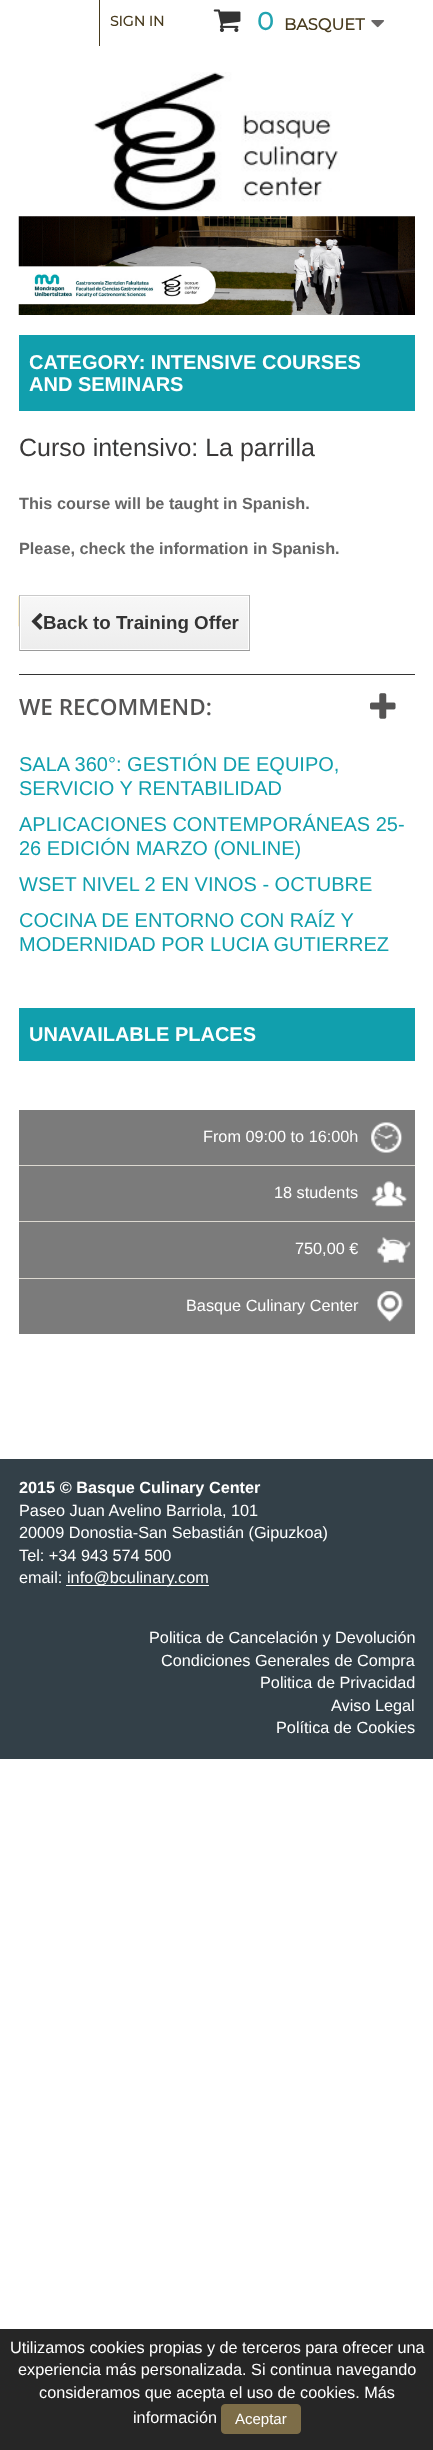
(async () => {
  const canvas = document.querySelector("canvas");
  canvas.width = 433;
  canvas.height = 2450;
  const ctx = canvas.getContext("2d");
  ctx.miterLimit = 4;
  ctx.fontKerning = "normal";
  async function loadImage(src) {
    const img = new Image();
    img.src = src;
    await img.decode();
    return img;
  }
  let gradient;

  ctx.fillStyle = "#ffffff";
  ctx.fillRect(0, 0, 433, 2450);
  ctx.fillStyle = "#483b1e";
  ctx.fillRect(99, 0, 1, 46);
  ctx.drawImage(await loadImage("img/1.png"), 213, 9, 28, 23);
  ctx.drawImage(await loadImage("img/2.png"), 371, 20, 14, 8);
  ctx.drawImage(await loadImage("img/3.png"), 93, 72, 247, 140);
  ctx.drawImage(await loadImage("img/4.png"), 18, 216, 397, 99);
  ctx.fillStyle = "#119fad";
  ctx.fillRect(19, 335, 396, 76);
  ctx.drawImage(await loadImage("img/5.png"), 18, 596, 1, 31);
  for (const [x, y, w, h, color] of [
    [19, 595, 231, 1, "#cacaca"],
    [249, 595, 1, 56, "#b7b7b7"],
    [19, 650, 231, 1, "#9a9a9a"],
    [19, 595, 1, 56, "#b7b7b7"],
    [21, 597, 227, 1, "#f7f7f7"],
  ]) {
    ctx.fillStyle = color;
    ctx.fillRect(x, y, w, h);
  }
  gradient = ctx.createLinearGradient(134, 598, 134, 649);
  gradient.addColorStop(0, "#f7f7f7");
  gradient.addColorStop(1, "#ededed");
  ctx.fillStyle = gradient;
  ctx.fillRect(21, 598, 227, 51);
  ctx.drawImage(await loadImage("img/6.png"), 31, 613, 12, 17);
  ctx.fillStyle = "#333333";
  ctx.fillRect(19, 674, 396, 1);
  ctx.drawImage(await loadImage("img/7.png"), 370, 693, 26, 26);
  ctx.fillStyle = "#119fad";
  ctx.fillRect(19, 1008, 396, 53);
  ctx.fillStyle = "#7b7b7b";
  ctx.fillRect(19, 1110, 396, 55);
  ctx.drawImage(await loadImage("img/8.png"), 371, 1122, 32, 31);
  ctx.fillStyle = "#ddd9d1";
  ctx.fillRect(19, 1165, 396, 1);
  ctx.fillStyle = "#7b7b7b";
  ctx.fillRect(19, 1166, 396, 112);
  ctx.drawImage(await loadImage("img/9.png"), 371, 1181, 36, 26);
  ctx.fillStyle = "#ddd9d1";
  ctx.fillRect(19, 1221, 396, 1);
  ctx.drawImage(await loadImage("img/10.png"), 377, 1237, 34, 26);
  ctx.fillRect(19, 1278, 396, 1);
  ctx.fillStyle = "#7b7b7b";
  ctx.fillRect(19, 1279, 396, 55);
  ctx.drawImage(await loadImage("img/11.png"), 377, 1291, 26, 31);
  for (const [x, y, w, h, color] of [
    [0, 1459, 433, 300, "#334048"],
    [66, 1585, 143, 1, "#ffffff"],
    [0, 2329, 433, 121, "#262626"],
  ]) {
    ctx.fillStyle = color;
    ctx.fillRect(x, y, w, h);
  }
  ctx.fillStyle = "#7d6d48";
  ctx.beginPath();
  ctx.roundRect(221.5, 2404.5, 79, 29, 3.5);
  ctx.fill();
  ctx.strokeStyle = "#7d6d48";
  ctx.stroke();
  ctx.font = "bold 14px Montserrat";
  ctx.fillStyle = "#483b1e";
  ctx.fillText("SIGN IN", 110, 26);
  ctx.font = "bold 25px Montserrat";
  ctx.fillStyle = "#23a4b1";
  ctx.fillText("0", 257, 30);
  ctx.font = "bold 16.25px Montserrat";
  ctx.fillStyle = "#483b1e";
  ctx.fillText("BASQUET", 284, 30);
  ctx.font = "bold 20px Liberation Sans";
  ctx.fillStyle = "#ffffff";
  ctx.fillText("CATEGORY: INTENSIVE COURSES", 29, 369);
  ctx.fillText("AND SEMINARS", 29, 391);
  ctx.font = "25px Liberation Sans";
  ctx.fillStyle = "#3a3939";
  ctx.fillText("Curso intensivo: La parrilla", 19, 456);
  ctx.font = "bold 16.25px Liberation Sans";
  ctx.fillStyle = "#666666";
  ctx.fillText("This course will be taught in Spanish.", 19, 509);
  ctx.fillText("Please, check the information in Spanish.", 19, 554);
  ctx.font = "bold 18.75px Liberation Sans";
  ctx.fillStyle = "#333333";
  ctx.fillText("Back to Training Offer", 43, 629);
  ctx.font = "600 22.5px Open Sans";
  ctx.fillStyle = "#555454";
  ctx.fillText("WE RECOMMEND:", 19, 715);
  ctx.font = "20px Liberation Sans";
  ctx.fillStyle = "#119fad";
  for (const [text, x, y] of [
    ["SALA 360°: GESTIÓN DE EQUIPO,", 19, 771],
    ["SERVICIO Y RENTABILIDAD", 19, 795],
    ["APLICACIONES CONTEMPORÁNEAS 25-", 19, 831],
    ["26 EDICIÓN MARZO (ONLINE)", 19, 855],
    ["WSET NIVEL 2 EN VINOS - OCTUBRE", 19, 891],
    ["COCINA DE ENTORNO CON RAÍZ Y", 19, 927],
    ["MODERNIDAD POR LUCIA GUTIERREZ", 19, 951],
  ]) {
    ctx.fillText(text, x, y);
  }
  ctx.font = "bold 20px Liberation Sans";
  ctx.fillStyle = "#ffffff";
  ctx.fillText("UNAVAILABLE PLACES", 29, 1041);
  ctx.font = "16.25px Liberation Sans";
  for (const [text, x, y] of [
    ["From 09:00 to 16:00h", 203, 1142],
    ["18 students", 274, 1198],
    ["750,00 €", 295, 1254],
    ["Basque Culinary Center", 186, 1311],
  ]) {
    ctx.fillText(text, x, y);
  }
  ctx.font = "bold 16.25px Liberation Sans";
  ctx.fillText("2015 © Basque Culinary Center", 19, 1493);
  ctx.font = "16.25px Liberation Sans";
  for (const [text, x, y] of [
    ["Paseo Juan Avelino Barriola, 101", 19, 1516],
    ["20009 Donostia-San Sebastián (Gipuzkoa)", 19, 1538],
    ["Tel: +34 943 574 500", 19, 1561],
    ["email:", 19, 1583],
    ["info@bculinary.com", 67, 1583],
    ["Politica de Cancelación y Devolución", 149, 1643],
    ["Condiciones Generales de Compra", 161, 1666],
    ["Politica de Privacidad", 260, 1688],
    ["Aviso Legal", 331, 1711],
    ["Política de Cookies", 276, 1733],
    ["Utilizamos cookies propias y de terceros para ofrecer una", 10, 2353],
    ["experiencia más personalizada. Si continua navegando", 18, 2375],
    ["consideramos que acepta el uso de cookies. Más", 39, 2398],
    ["información", 133, 2423],
  ]) {
    ctx.fillText(text, x, y);
  }
  ctx.font = "15px Liberation Sans";
  ctx.fillText("Aceptar", 235, 2424);
})();
